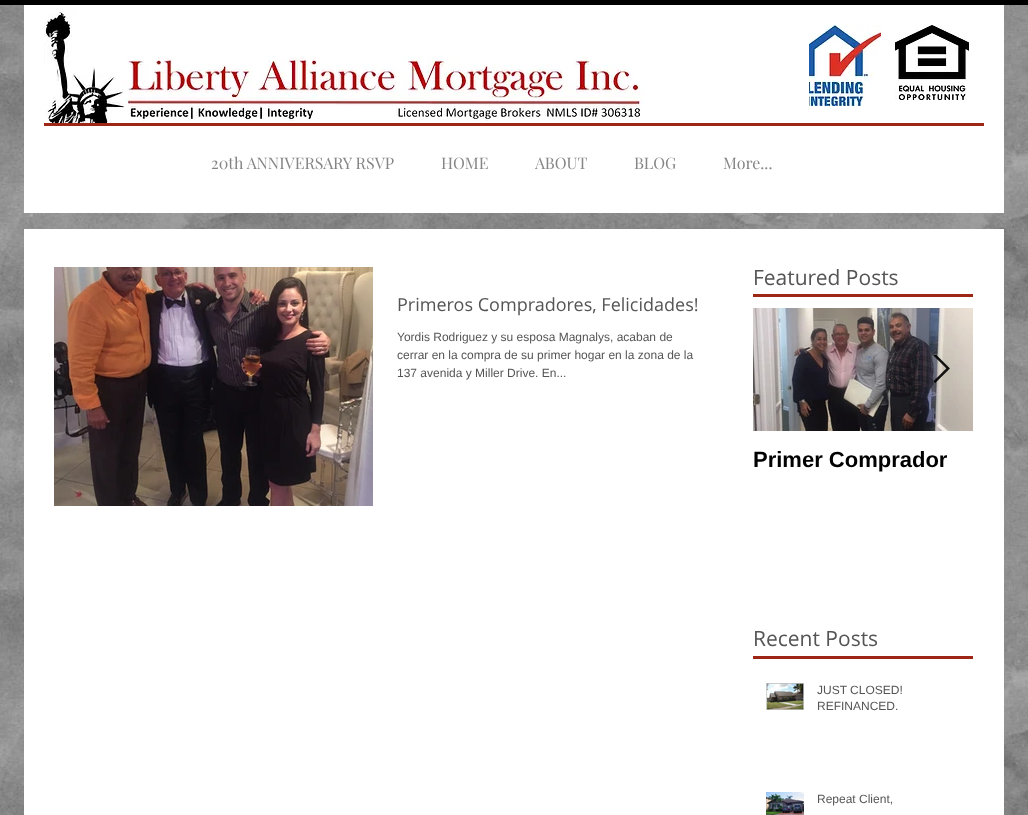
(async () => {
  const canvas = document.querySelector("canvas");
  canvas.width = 1028;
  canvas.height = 815;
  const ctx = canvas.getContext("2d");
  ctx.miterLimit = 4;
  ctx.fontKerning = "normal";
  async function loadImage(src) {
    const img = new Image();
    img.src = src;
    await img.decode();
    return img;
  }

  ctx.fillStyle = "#ffffff";
  ctx.fillRect(0, 0, 1028, 815);
  ctx.drawImage(await loadImage("img/1.png"), 0, 5, 1028, 810);
  ctx.fillStyle = "#000000";
  ctx.fillRect(0, 0, 1028, 5);
  ctx.fillStyle = "#ffffff";
  ctx.fillRect(24, 5, 980, 208);
  ctx.drawImage(await loadImage("img/2.png"), 44, 9, 600, 114);
  ctx.drawImage(await loadImage("img/3.png"), 809, 25, 72, 81);
  ctx.drawImage(await loadImage("img/4.png"), 895, 25, 74, 75);
  for (const [x, y, w, h, color] of [
    [44, 123, 940, 3, "#9e2614"],
    [24, 229, 980, 586, "#ffffff"],
    [753, 294, 220, 3, "#9e2614"],
  ]) {
    ctx.fillStyle = color;
    ctx.fillRect(x, y, w, h);
  }
  ctx.drawImage(await loadImage("img/5.png"), 54, 267, 319, 239);
  ctx.drawImage(await loadImage("img/7.png"), 753, 308, 220, 123);
  ctx.drawImage(await loadImage("img/6.png"), 933, 355, 17, 28);
  ctx.fillRect(753, 656, 220, 3);
  ctx.drawImage(await loadImage("img/8.png"), 766, 683, 38, 27);
  ctx.drawImage(await loadImage("img/9.png"), 766, 792, 38, 23);
  ctx.font = "16px Playfair Display";
  ctx.fillStyle = "#858585";
  for (const [text, x, y] of [
    ["20th ANNIVERSARY RSVP", 211, 169],
    ["HOME", 441, 169],
    ["ABOUT", 535, 169],
    ["BLOG", 634, 169],
    ["More...", 723, 169],
  ]) {
    ctx.fillText(text, x, y);
  }
  ctx.font = "21px Open Sans";
  ctx.fillStyle = "#555555";
  ctx.fillText("Featured Posts", 753, 285);
  ctx.font = "18px Open Sans";
  ctx.fillText("Primeros Compradores, Felicidades!", 397, 311);
  ctx.font = "12px Liberation Sans";
  for (const [text, x, y] of [
    ["Yordis Rodriguez y su esposa Magnalys, acaban de", 397, 341],
    ["cerrar en la compra de su primer hogar en la zona de la", 397, 359],
    ["137 avenida y Miller Drive. En...", 397, 377],
  ]) {
    ctx.fillText(text, x, y);
  }
  ctx.font = "bold 22px Liberation Sans";
  ctx.fillStyle = "#000000";
  ctx.fillText("Primer Comprador", 753, 467);
  ctx.font = "21px Open Sans";
  ctx.fillStyle = "#555555";
  ctx.fillText("Recent Posts", 753, 646);
  ctx.font = "12px Liberation Sans";
  for (const [text, x, y] of [
    ["JUST CLOSED!", 817, 694],
    ["REFINANCED.", 817, 710],
    ["Repeat Client,", 817, 803],
  ]) {
    ctx.fillText(text, x, y);
  }
})();
